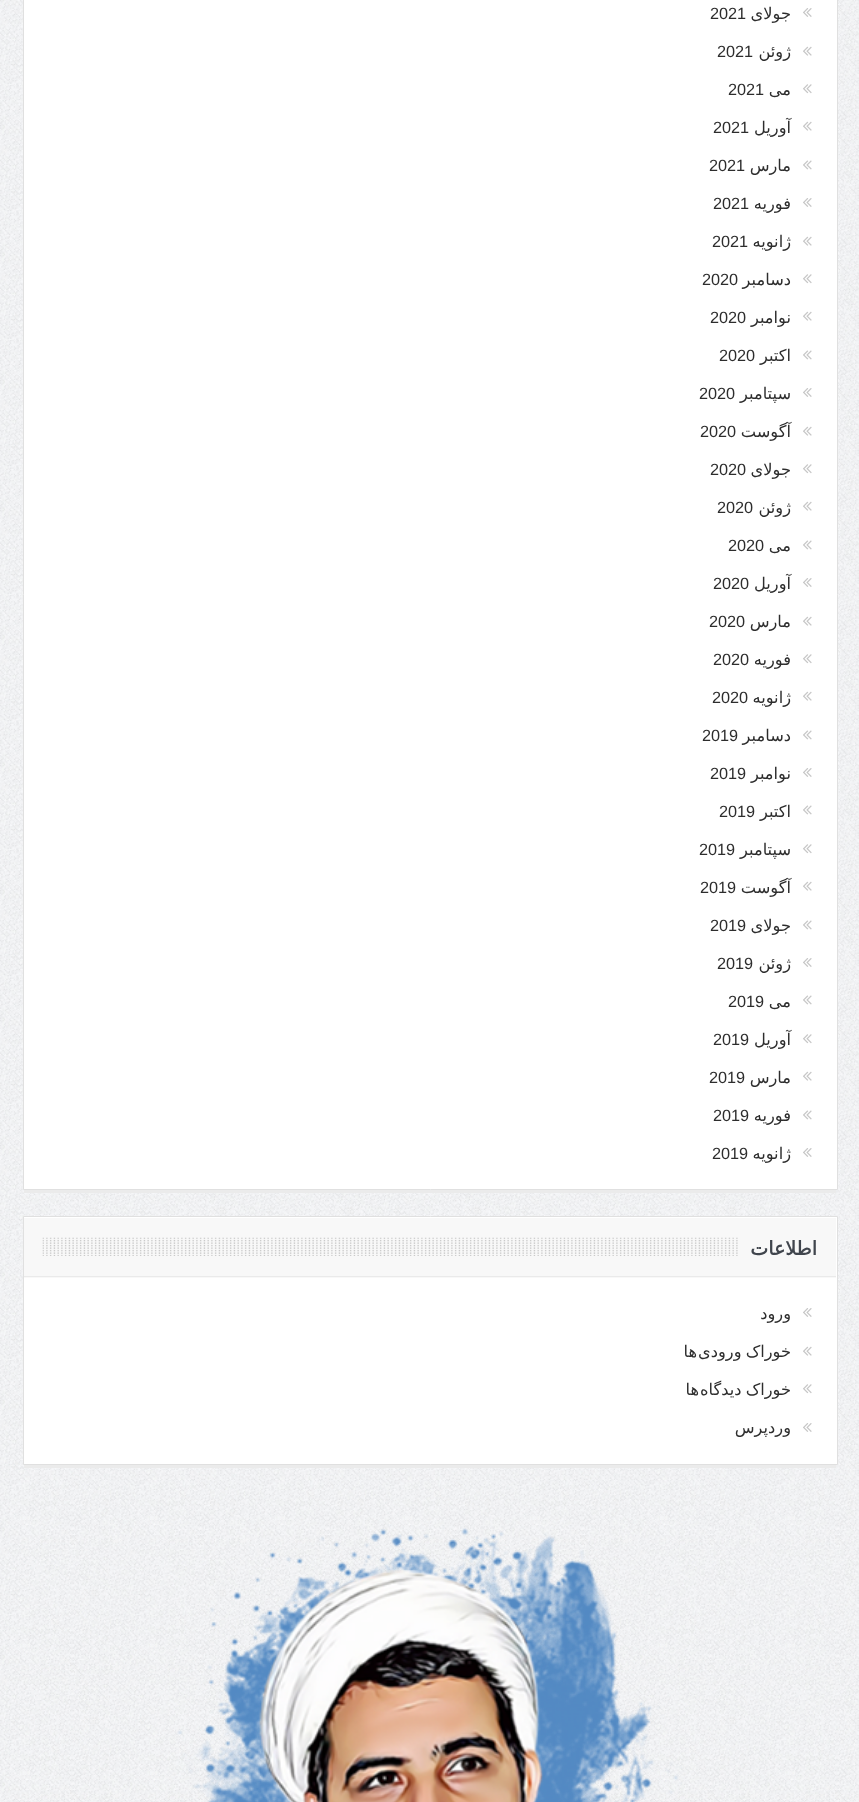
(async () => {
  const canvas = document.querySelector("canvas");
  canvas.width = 859;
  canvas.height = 1802;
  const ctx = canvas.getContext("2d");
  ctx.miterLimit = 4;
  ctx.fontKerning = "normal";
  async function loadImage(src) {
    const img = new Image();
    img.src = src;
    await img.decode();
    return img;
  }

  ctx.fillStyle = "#ffffff";
  ctx.fillRect(0, 0, 859, 1802);
  ctx.drawImage(await loadImage("img/1.png"), 0, 0, 859, 1802);
  ctx.beginPath();
  ctx.rect(23.5, -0.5, 814, 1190);
  ctx.fill();
  ctx.strokeStyle = "#e0e0e0";
  ctx.stroke();
  ctx.drawImage(await loadImage("img/2.png"), 803, 8, 9, 9);
  ctx.drawImage(await loadImage("img/3.png"), 803, 46, 9, 10);
  ctx.drawImage(await loadImage("img/4.png"), 803, 84, 9, 10);
  ctx.drawImage(await loadImage("img/3.png"), 803, 121, 9, 10);
  ctx.drawImage(await loadImage("img/5.png"), 803, 160, 9, 10);
  ctx.drawImage(await loadImage("img/2.png"), 803, 198, 9, 9);
  ctx.drawImage(await loadImage("img/3.png"), 803, 236, 9, 10);
  ctx.drawImage(await loadImage("img/4.png"), 803, 274, 9, 10);
  ctx.drawImage(await loadImage("img/3.png"), 803, 311, 9, 10);
  ctx.drawImage(await loadImage("img/5.png"), 803, 350, 9, 10);
  ctx.drawImage(await loadImage("img/2.png"), 803, 388, 9, 9);
  ctx.drawImage(await loadImage("img/3.png"), 803, 426, 9, 10);
  ctx.drawImage(await loadImage("img/4.png"), 803, 464, 9, 10);
  ctx.drawImage(await loadImage("img/3.png"), 803, 501, 9, 10);
  ctx.drawImage(await loadImage("img/5.png"), 803, 540, 9, 10);
  ctx.drawImage(await loadImage("img/2.png"), 803, 578, 9, 9);
  ctx.drawImage(await loadImage("img/3.png"), 803, 616, 9, 10);
  ctx.drawImage(await loadImage("img/4.png"), 803, 654, 9, 10);
  ctx.drawImage(await loadImage("img/3.png"), 803, 691, 9, 10);
  ctx.drawImage(await loadImage("img/5.png"), 803, 730, 9, 10);
  ctx.drawImage(await loadImage("img/2.png"), 803, 768, 9, 9);
  ctx.drawImage(await loadImage("img/5.png"), 803, 805, 9, 10);
  ctx.drawImage(await loadImage("img/4.png"), 803, 844, 9, 10);
  ctx.drawImage(await loadImage("img/3.png"), 803, 881, 9, 10);
  ctx.drawImage(await loadImage("img/5.png"), 803, 920, 9, 10);
  ctx.drawImage(await loadImage("img/2.png"), 803, 958, 9, 9);
  ctx.drawImage(await loadImage("img/5.png"), 803, 995, 9, 10);
  ctx.drawImage(await loadImage("img/4.png"), 803, 1034, 9, 10);
  ctx.drawImage(await loadImage("img/3.png"), 803, 1071, 9, 10);
  ctx.drawImage(await loadImage("img/5.png"), 803, 1110, 9, 10);
  ctx.drawImage(await loadImage("img/2.png"), 803, 1148, 9, 9);
  ctx.fillStyle = "#ebebeb";
  ctx.fillRect(24, 1190, 812, 3);
  ctx.fillStyle = "#ffffff";
  ctx.beginPath();
  ctx.rect(23.5, 1216.5, 814, 248);
  ctx.fill();
  ctx.stroke();
  ctx.fillStyle = "#f8f8f8";
  ctx.fillRect(24, 1218, 812, 60);
  ctx.fillStyle = "#eaeaea";
  ctx.fillRect(24, 1276, 812, 1);
  ctx.drawImage(await loadImage("img/6.png"), 42, 1237, 696, 19);
  ctx.drawImage(await loadImage("img/2.png"), 803, 1308, 9, 9);
  ctx.drawImage(await loadImage("img/3.png"), 803, 1346, 9, 10);
  ctx.drawImage(await loadImage("img/4.png"), 803, 1384, 9, 10);
  ctx.drawImage(await loadImage("img/2.png"), 803, 1423, 9, 9);
  ctx.fillStyle = "#ebebeb";
  ctx.fillRect(24, 1465, 812, 3);
  ctx.drawImage(await loadImage("img/7.png"), 177, 1524, 505, 278);
  ctx.direction = "rtl";
  ctx.font = "16.25px DejaVu Sans";
  ctx.fillStyle = "#2d2d2d";
  ctx.fillText("جولای", 791, 19);
  ctx.direction = "ltr";
  ctx.font = "16.25px Liberation Sans";
  ctx.fillText("2021", 710, 19);
  ctx.direction = "rtl";
  ctx.font = "16.25px DejaVu Sans";
  ctx.fillText("ژوئن", 791, 57);
  ctx.direction = "ltr";
  ctx.font = "16.25px Liberation Sans";
  ctx.fillText("2021", 717, 57);
  ctx.direction = "rtl";
  ctx.font = "16.25px DejaVu Sans";
  ctx.fillText("می", 791, 95);
  ctx.direction = "ltr";
  ctx.font = "16.25px Liberation Sans";
  ctx.fillText("2021", 728, 95);
  ctx.direction = "rtl";
  ctx.font = "16.25px DejaVu Sans";
  ctx.fillText("آوریل", 791, 133);
  ctx.direction = "ltr";
  ctx.font = "16.25px Liberation Sans";
  ctx.fillText("2021", 713, 133);
  ctx.direction = "rtl";
  ctx.font = "16.25px DejaVu Sans";
  ctx.fillText("مارس", 791, 171);
  ctx.direction = "ltr";
  ctx.font = "16.25px Liberation Sans";
  ctx.fillText("2021", 709, 171);
  ctx.direction = "rtl";
  ctx.font = "16.25px DejaVu Sans";
  ctx.fillText("فوریه", 791, 209);
  ctx.direction = "ltr";
  ctx.font = "16.25px Liberation Sans";
  ctx.fillText("2021", 713, 209);
  ctx.direction = "rtl";
  ctx.font = "16.25px DejaVu Sans";
  ctx.fillText("ژانویه", 791, 247);
  ctx.direction = "ltr";
  ctx.font = "16.25px Liberation Sans";
  ctx.fillText("2021", 712, 247);
  ctx.direction = "rtl";
  ctx.font = "16.25px DejaVu Sans";
  ctx.fillText("دسامبر", 791, 285);
  ctx.direction = "ltr";
  ctx.font = "16.25px Liberation Sans";
  ctx.fillText("2020", 702, 285);
  ctx.direction = "rtl";
  ctx.font = "16.25px DejaVu Sans";
  ctx.fillText("نوامبر", 791, 323);
  ctx.direction = "ltr";
  ctx.font = "16.25px Liberation Sans";
  ctx.fillText("2020", 710, 323);
  ctx.direction = "rtl";
  ctx.font = "16.25px DejaVu Sans";
  ctx.fillText("اکتبر", 791, 361);
  ctx.direction = "ltr";
  ctx.font = "16.25px Liberation Sans";
  ctx.fillText("2020", 719, 361);
  ctx.direction = "rtl";
  ctx.font = "16.25px DejaVu Sans";
  ctx.fillText("سپتامبر", 791, 399);
  ctx.direction = "ltr";
  ctx.font = "16.25px Liberation Sans";
  ctx.fillText("2020", 699, 399);
  ctx.direction = "rtl";
  ctx.font = "16.25px DejaVu Sans";
  ctx.fillText("آگوست", 791, 437);
  ctx.direction = "ltr";
  ctx.font = "16.25px Liberation Sans";
  ctx.fillText("2020", 700, 437);
  ctx.direction = "rtl";
  ctx.font = "16.25px DejaVu Sans";
  ctx.fillText("جولای", 791, 475);
  ctx.direction = "ltr";
  ctx.font = "16.25px Liberation Sans";
  ctx.fillText("2020", 710, 475);
  ctx.direction = "rtl";
  ctx.font = "16.25px DejaVu Sans";
  ctx.fillText("ژوئن", 791, 513);
  ctx.direction = "ltr";
  ctx.font = "16.25px Liberation Sans";
  ctx.fillText("2020", 717, 513);
  ctx.direction = "rtl";
  ctx.font = "16.25px DejaVu Sans";
  ctx.fillText("می", 791, 551);
  ctx.direction = "ltr";
  ctx.font = "16.25px Liberation Sans";
  ctx.fillText("2020", 728, 551);
  ctx.direction = "rtl";
  ctx.font = "16.25px DejaVu Sans";
  ctx.fillText("آوریل", 791, 589);
  ctx.direction = "ltr";
  ctx.font = "16.25px Liberation Sans";
  ctx.fillText("2020", 713, 589);
  ctx.direction = "rtl";
  ctx.font = "16.25px DejaVu Sans";
  ctx.fillText("مارس", 791, 627);
  ctx.direction = "ltr";
  ctx.font = "16.25px Liberation Sans";
  ctx.fillText("2020", 709, 627);
  ctx.direction = "rtl";
  ctx.font = "16.25px DejaVu Sans";
  ctx.fillText("فوریه", 791, 665);
  ctx.direction = "ltr";
  ctx.font = "16.25px Liberation Sans";
  ctx.fillText("2020", 713, 665);
  ctx.direction = "rtl";
  ctx.font = "16.25px DejaVu Sans";
  ctx.fillText("ژانویه", 791, 703);
  ctx.direction = "ltr";
  ctx.font = "16.25px Liberation Sans";
  ctx.fillText("2020", 712, 703);
  ctx.direction = "rtl";
  ctx.font = "16.25px DejaVu Sans";
  ctx.fillText("دسامبر", 791, 741);
  ctx.direction = "ltr";
  ctx.font = "16.25px Liberation Sans";
  ctx.fillText("2019", 702, 741);
  ctx.direction = "rtl";
  ctx.font = "16.25px DejaVu Sans";
  ctx.fillText("نوامبر", 791, 779);
  ctx.direction = "ltr";
  ctx.font = "16.25px Liberation Sans";
  ctx.fillText("2019", 710, 779);
  ctx.direction = "rtl";
  ctx.font = "16.25px DejaVu Sans";
  ctx.fillText("اکتبر", 791, 817);
  ctx.direction = "ltr";
  ctx.font = "16.25px Liberation Sans";
  ctx.fillText("2019", 719, 817);
  ctx.direction = "rtl";
  ctx.font = "16.25px DejaVu Sans";
  ctx.fillText("سپتامبر", 791, 855);
  ctx.direction = "ltr";
  ctx.font = "16.25px Liberation Sans";
  ctx.fillText("2019", 699, 855);
  ctx.direction = "rtl";
  ctx.font = "16.25px DejaVu Sans";
  ctx.fillText("آگوست", 791, 893);
  ctx.direction = "ltr";
  ctx.font = "16.25px Liberation Sans";
  ctx.fillText("2019", 700, 893);
  ctx.direction = "rtl";
  ctx.font = "16.25px DejaVu Sans";
  ctx.fillText("جولای", 791, 931);
  ctx.direction = "ltr";
  ctx.font = "16.25px Liberation Sans";
  ctx.fillText("2019", 710, 931);
  ctx.direction = "rtl";
  ctx.font = "16.25px DejaVu Sans";
  ctx.fillText("ژوئن", 791, 969);
  ctx.direction = "ltr";
  ctx.font = "16.25px Liberation Sans";
  ctx.fillText("2019", 717, 969);
  ctx.fillText("2019", 728, 1007);
  ctx.direction = "rtl";
  ctx.font = "16.25px DejaVu Sans";
  ctx.fillText("می", 791, 1007);
  ctx.fillText("آوریل", 791, 1045);
  ctx.direction = "ltr";
  ctx.font = "16.25px Liberation Sans";
  ctx.fillText("2019", 713, 1045);
  ctx.direction = "rtl";
  ctx.font = "16.25px DejaVu Sans";
  ctx.fillText("مارس", 791, 1083);
  ctx.direction = "ltr";
  ctx.font = "16.25px Liberation Sans";
  ctx.fillText("2019", 709, 1083);
  ctx.direction = "rtl";
  ctx.font = "16.25px DejaVu Sans";
  ctx.fillText("فوریه", 791, 1121);
  ctx.direction = "ltr";
  ctx.font = "16.25px Liberation Sans";
  ctx.fillText("2019", 713, 1121);
  ctx.direction = "rtl";
  ctx.font = "16.25px DejaVu Sans";
  ctx.fillText("ژانویه", 791, 1159);
  ctx.direction = "ltr";
  ctx.font = "16.25px Liberation Sans";
  ctx.fillText("2019", 712, 1159);
  ctx.direction = "rtl";
  ctx.font = "bold 19px DejaVu Sans";
  ctx.fillStyle = "#40454d";
  ctx.fillText("اطلاعات", 817, 1255);
  ctx.font = "16.25px DejaVu Sans";
  ctx.fillStyle = "#2d2d2d";
  ctx.fillText("ورود", 791, 1319);
  ctx.wordSpacing = "-1px";
  ctx.fillText("خوراک ورودی", 791, 1357);
  ctx.wordSpacing = "0px";
  ctx.fillText("ها", 697, 1357);
  ctx.wordSpacing = "-1px";
  ctx.fillText("خوراک دیدگاه", 791, 1395);
  ctx.wordSpacing = "0px";
  ctx.fillText("ها", 699, 1395);
  ctx.fillText("وردپرس", 791, 1433);
})();
